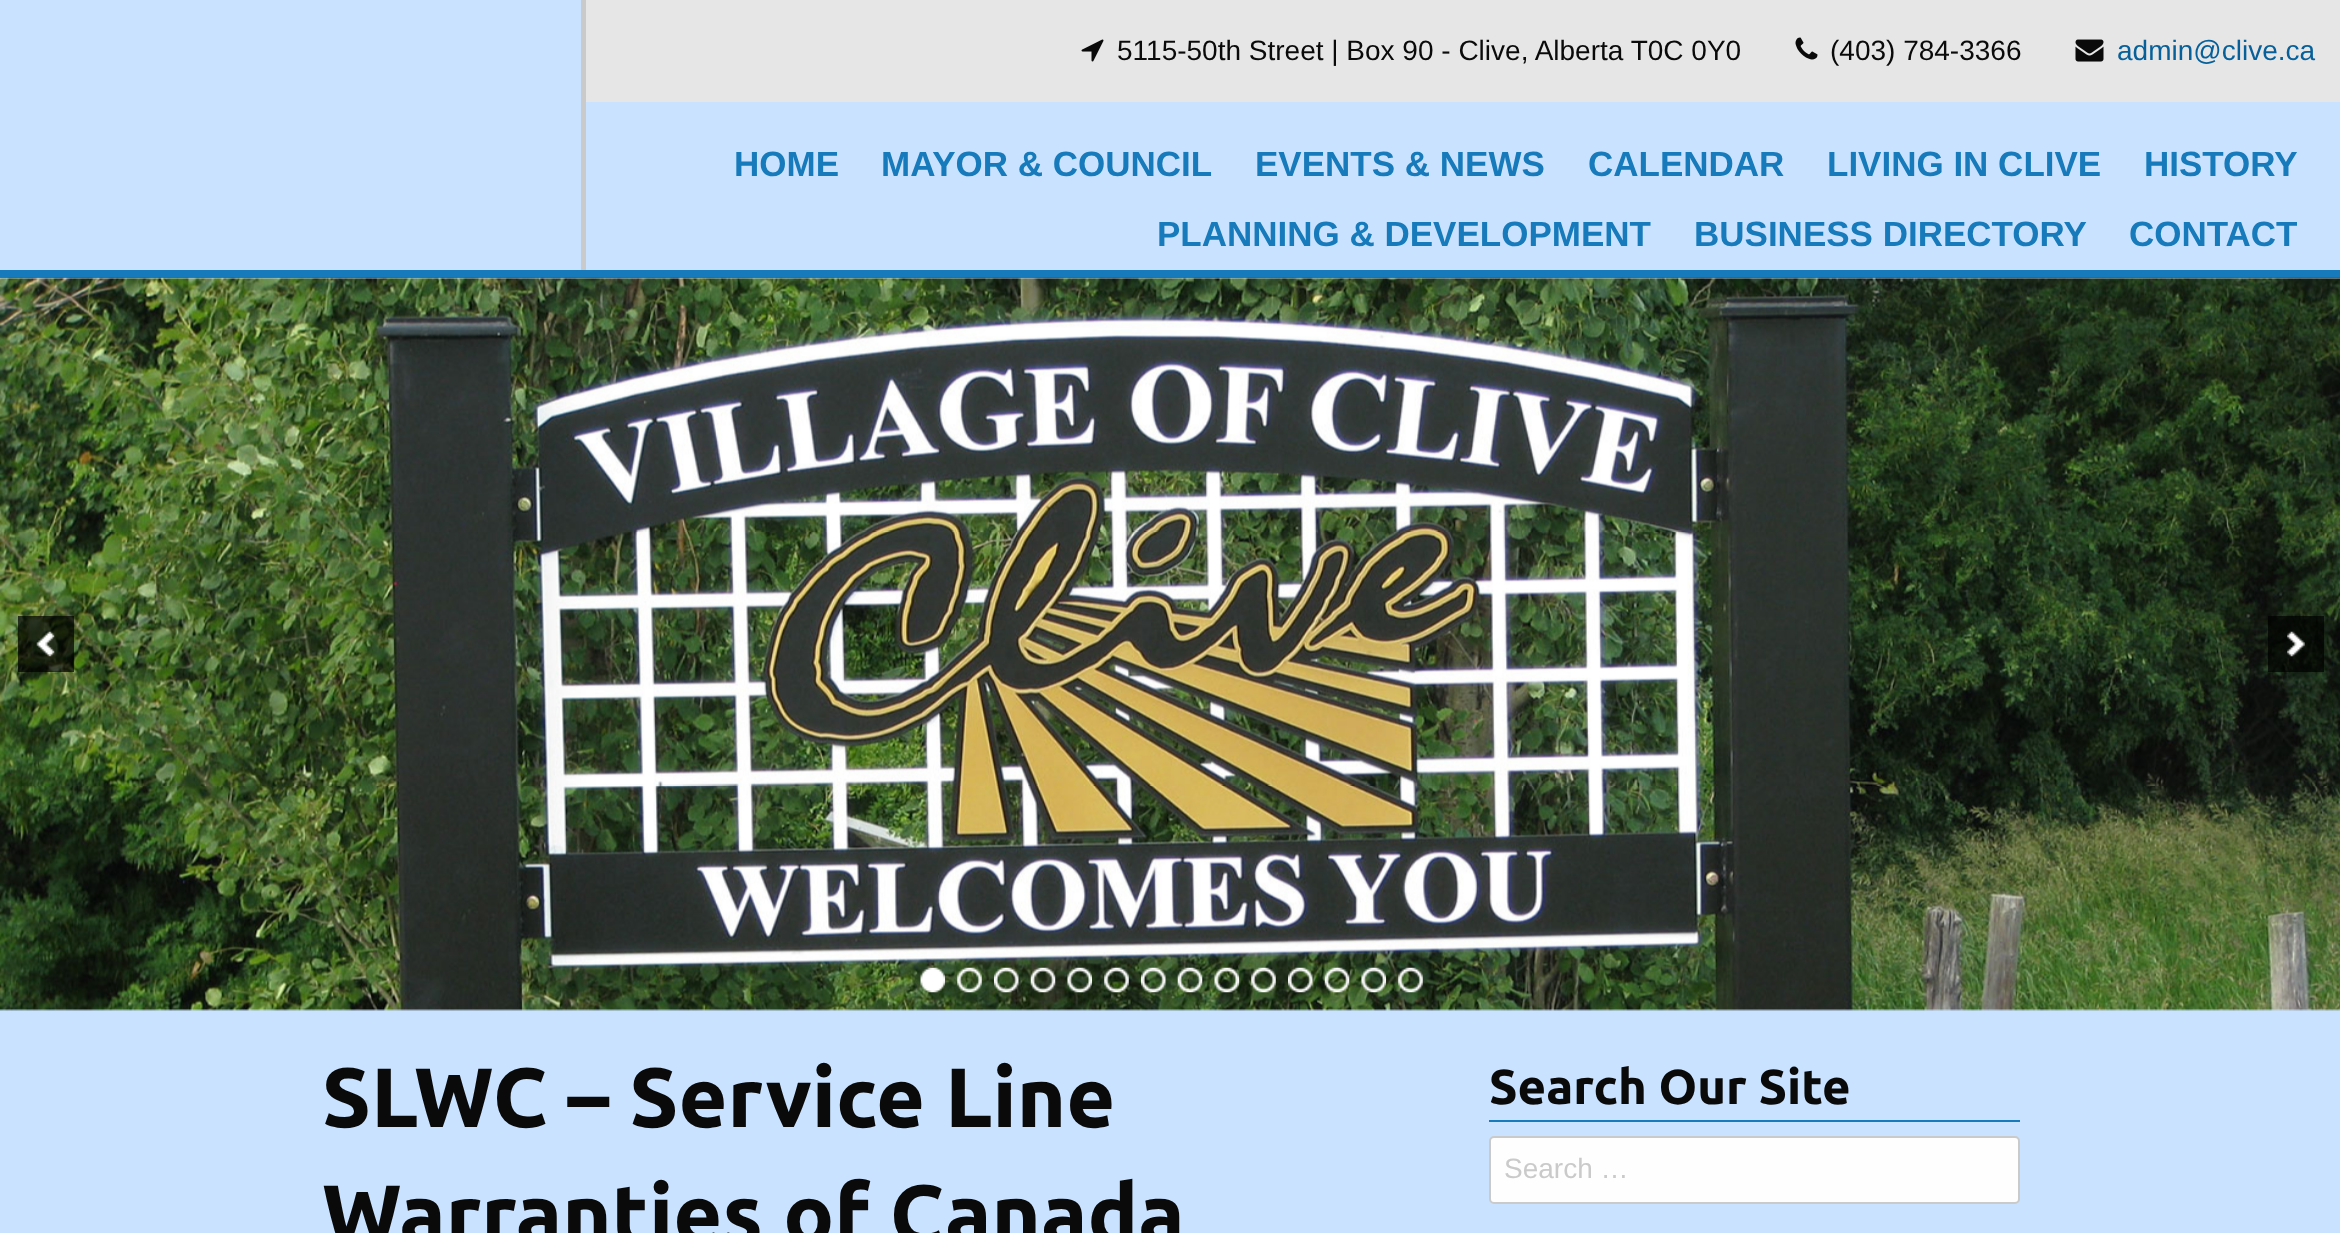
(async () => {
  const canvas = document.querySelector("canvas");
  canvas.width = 2340;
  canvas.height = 1233;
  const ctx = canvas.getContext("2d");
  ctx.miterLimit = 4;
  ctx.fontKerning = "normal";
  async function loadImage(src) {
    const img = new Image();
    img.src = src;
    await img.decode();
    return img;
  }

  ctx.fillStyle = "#c9e2ff";
  ctx.fillRect(0, 0, 2340, 1233);
  for (const [x, y, w, h, color] of [
    [0, 270, 2340, 8, "#177aba"],
    [581, 0, 5, 270, "#cacaca"],
    [586, 0, 1754, 102, "#e6e6e6"],
  ]) {
    ctx.fillStyle = color;
    ctx.fillRect(x, y, w, h);
  }
  ctx.drawImage(await loadImage("img/1.png"), 1081, 39, 23, 23);
  ctx.drawImage(await loadImage("img/2.png"), 1795, 37, 23, 23);
  ctx.drawImage(await loadImage("img/3.png"), 2075, 39, 29, 23);
  ctx.drawImage(await loadImage("img/4.png"), 0, 277, 2340, 734);
  ctx.fillStyle = "rgba(0, 0, 0, 0.7)";
  ctx.fillRect(18, 616, 56, 56);
  ctx.drawImage(await loadImage("img/5.png"), 36, 631, 19, 26);
  ctx.fillRect(2268, 616, 56, 56);
  ctx.drawImage(await loadImage("img/6.png"), 2287, 631, 18, 26);
  ctx.drawImage(await loadImage("img/7.png"), 920, 967, 25, 26);
  ctx.drawImage(await loadImage("img/8.png"), 957, 967, 25, 26);
  ctx.drawImage(await loadImage("img/9.png"), 994, 967, 25, 26);
  ctx.drawImage(await loadImage("img/10.png"), 1030, 967, 26, 26);
  ctx.drawImage(await loadImage("img/11.png"), 1067, 967, 25, 26);
  ctx.drawImage(await loadImage("img/12.png"), 1104, 967, 25, 26);
  ctx.drawImage(await loadImage("img/13.png"), 1141, 967, 25, 26);
  ctx.drawImage(await loadImage("img/14.png"), 1177, 967, 26, 26);
  ctx.drawImage(await loadImage("img/15.png"), 1214, 967, 25, 26);
  ctx.drawImage(await loadImage("img/16.png"), 1251, 967, 25, 26);
  ctx.drawImage(await loadImage("img/17.png"), 1288, 967, 25, 26);
  ctx.drawImage(await loadImage("img/18.png"), 1324, 967, 26, 26);
  ctx.drawImage(await loadImage("img/19.png"), 1361, 967, 25, 26);
  ctx.drawImage(await loadImage("img/20.png"), 1398, 967, 25, 26);
  ctx.fillStyle = "#177aba";
  ctx.fillRect(1489, 1120, 531, 2);
  ctx.fillStyle = "#fefefe";
  ctx.beginPath();
  ctx.roundRect(1490, 1137, 529, 66, 4);
  ctx.fill();
  ctx.strokeStyle = "#cacaca";
  ctx.lineWidth = 2;
  ctx.stroke();
  ctx.font = "28px Liberation Sans";
  ctx.fillStyle = "#0a0a0a";
  ctx.fillText("5115-50th Street | Box 90 - Clive, Alberta T0C 0Y0", 1117, 60);
  ctx.fillText("(403) 784-3366", 1830, 60);
  ctx.fillStyle = "#07609a";
  ctx.fillText("admin@clive.ca", 2117, 60);
  ctx.font = "bold 35px Liberation Sans";
  ctx.fillStyle = "#177aba";
  for (const [text, x, y] of [
    ["HOME", 734, 176],
    ["MAYOR & COUNCIL", 881, 176],
    ["EVENTS & NEWS", 1255, 176],
    ["CALENDAR", 1588, 176],
    ["LIVING IN CLIVE", 1827, 176],
    ["HISTORY", 2144, 176],
    ["PLANNING & DEVELOPMENT", 1157, 246],
    ["BUSINESS DIRECTORY", 1694, 246],
    ["CONTACT", 2129, 246],
  ]) {
    ctx.fillText(text, x, y);
  }
  ctx.font = "bold 84px Ubuntu";
  ctx.fillStyle = "#0a0a0a";
  ctx.fillText("SLWC – Service Line", 322, 1127);
  ctx.fillText("Warranties of Canada", 322, 1244);
  ctx.font = "bold 49px Ubuntu";
  ctx.fillText("Search Our Site", 1489, 1104);
  ctx.font = "28px Liberation Sans";
  ctx.fillStyle = "#cacaca";
  ctx.fillText("Search …", 1504, 1178);
})();
